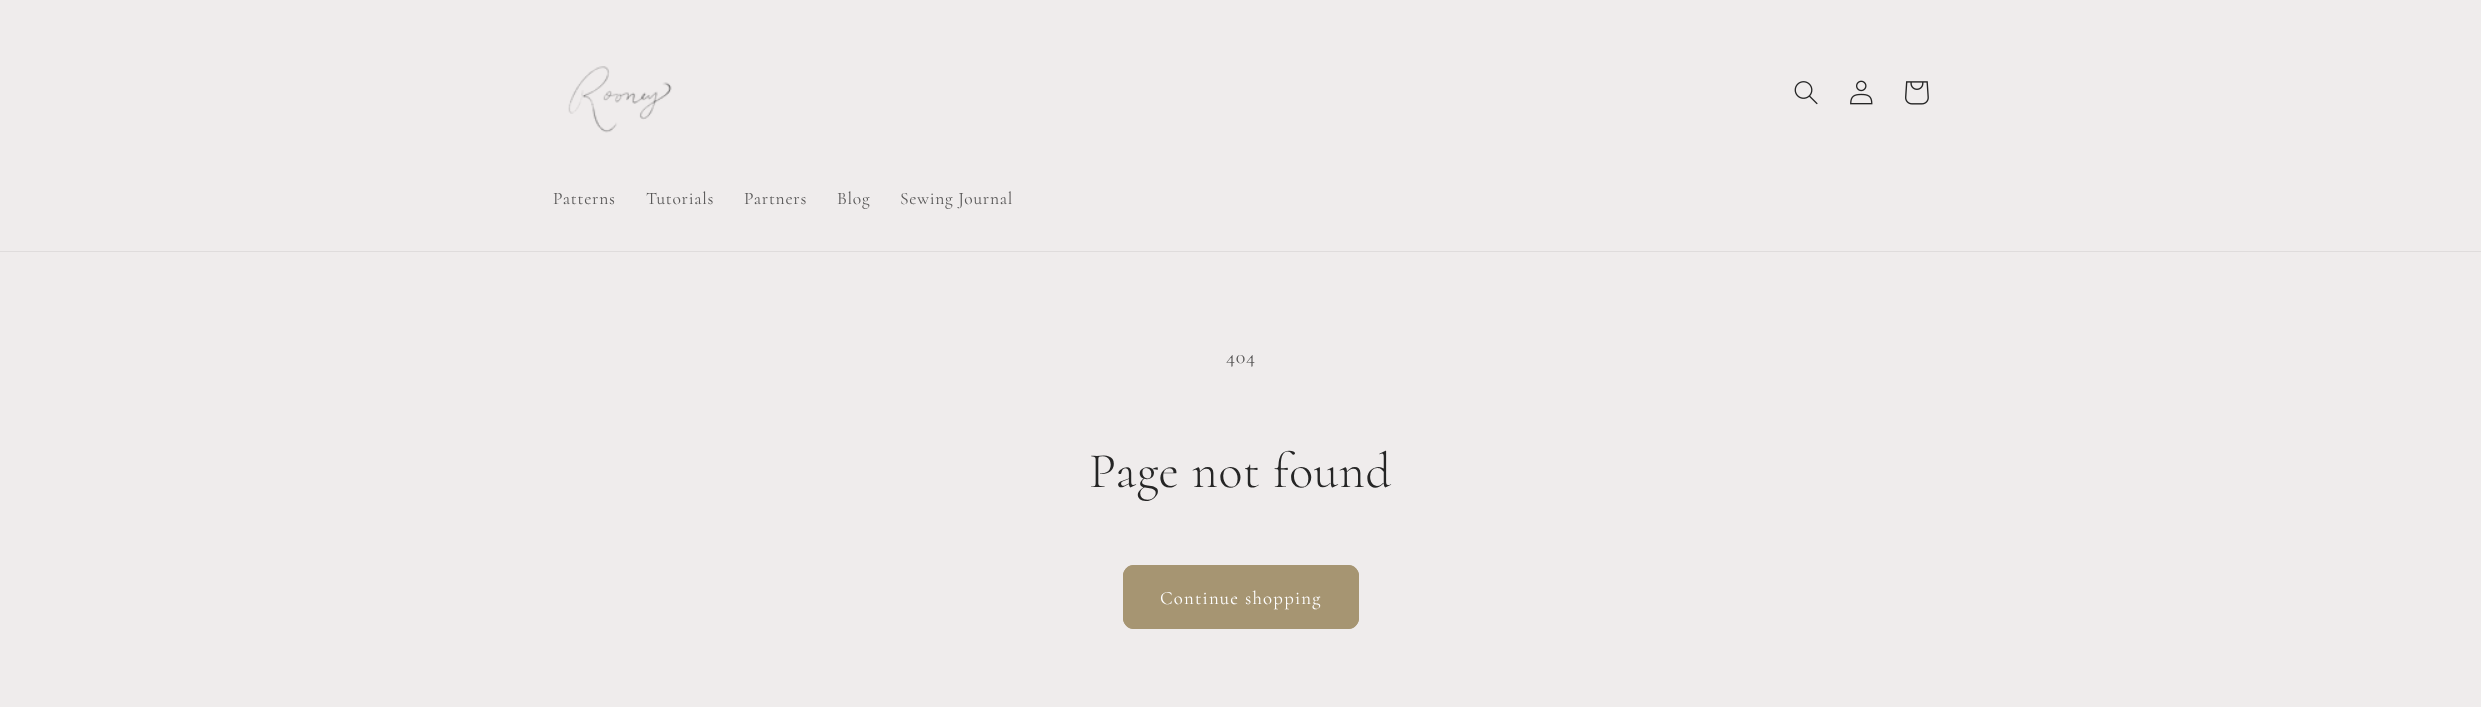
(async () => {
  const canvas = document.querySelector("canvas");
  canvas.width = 2481;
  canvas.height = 707;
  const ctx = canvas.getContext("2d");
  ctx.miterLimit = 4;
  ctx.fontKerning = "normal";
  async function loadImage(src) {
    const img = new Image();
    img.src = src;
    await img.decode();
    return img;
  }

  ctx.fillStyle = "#efecec";
  ctx.fillRect(0, 0, 2481, 707);
  ctx.fillStyle = "#dfdcdc";
  ctx.fillRect(0, 251, 2481, 1);
  ctx.drawImage(await loadImage("img/1.png"), 568, 66, 104, 67);
  ctx.drawImage(await loadImage("img/2.png"), 1794, 81, 24, 24);
  ctx.drawImage(await loadImage("img/3.png"), 1850, 80, 23, 25);
  ctx.drawImage(await loadImage("img/4.png"), 1905, 81, 24, 24);
  ctx.fillStyle = "#a69572";
  ctx.beginPath();
  ctx.roundRect(1123, 565, 236, 64, 11);
  ctx.fill();
  ctx.beginPath();
  ctx.roundRect(1125, 567, 232, 60, 9);
  ctx.strokeStyle = "#a69572";
  ctx.lineWidth = 4;
  ctx.stroke();
  ctx.letterSpacing = "0.75px";
  ctx.font = "17.5px Cormorant";
  ctx.fillStyle = "#585757";
  for (const [text, x, y] of [
    ["Patterns", 553, 204],
    ["Tutorials", 646, 204],
    ["Partners", 744, 204],
    ["Blog", 837, 204],
    ["Sewing Journal", 900, 204],
  ]) {
    ctx.fillText(text, x, y);
  }
  ctx.font = "20px Cormorant";
  ctx.fillText("404", 1226, 363);
  ctx.font = "300 50px Cormorant";
  ctx.fillStyle = "#252525";
  ctx.fillText("Page not found", 1089, 487);
  ctx.letterSpacing = "1.25px";
  ctx.font = "18.75px Cormorant";
  ctx.fillStyle = "#ffffff";
  ctx.fillText("Continue shopping", 1160, 604);
})();
